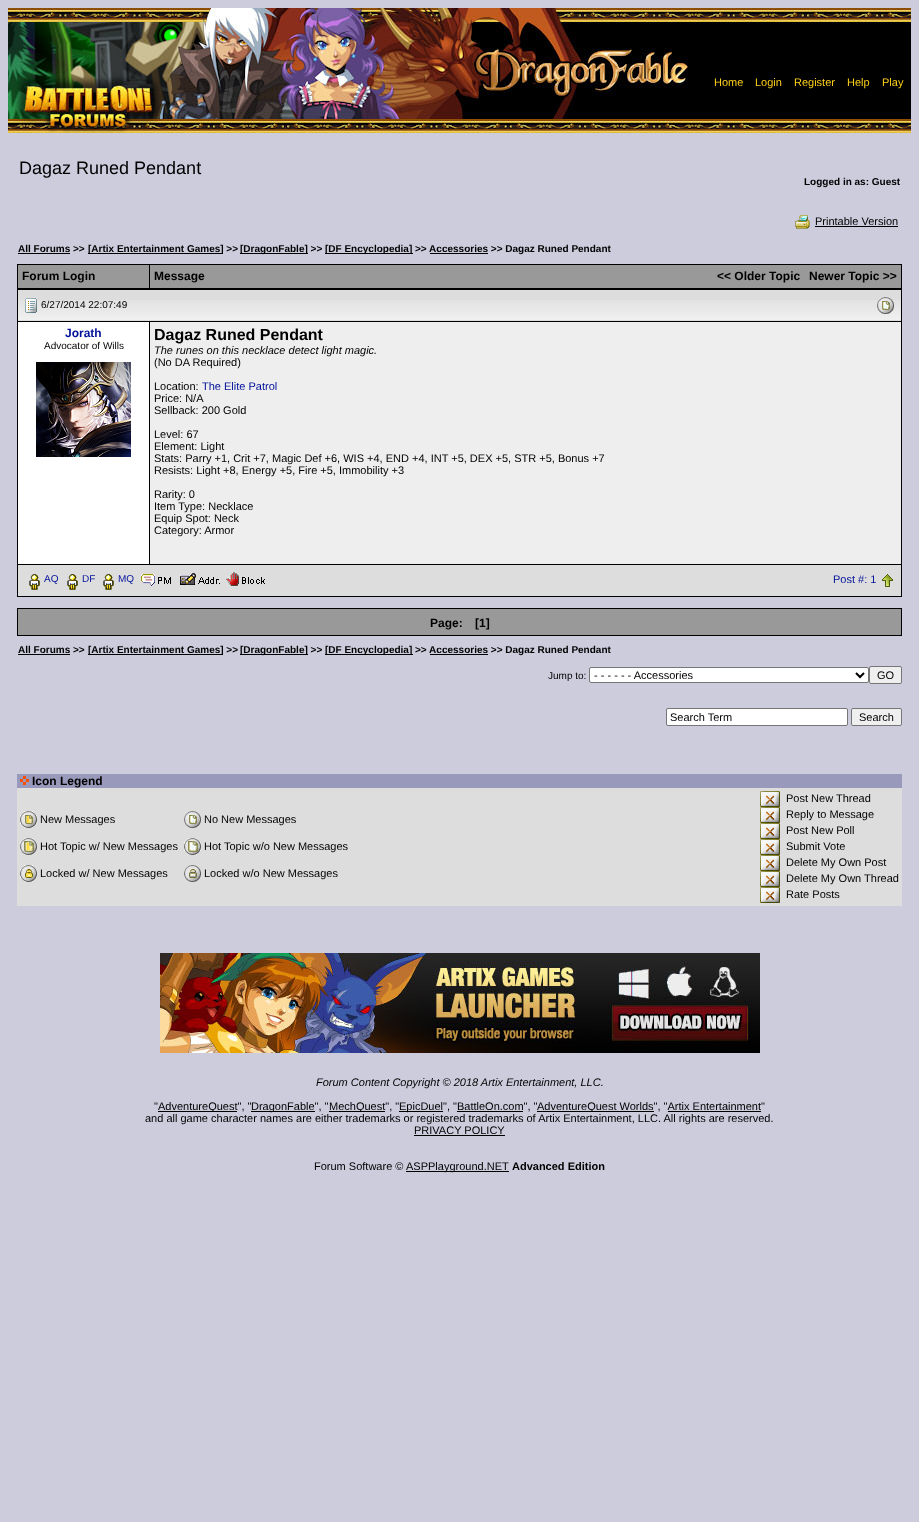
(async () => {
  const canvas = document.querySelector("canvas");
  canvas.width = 919;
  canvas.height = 1522;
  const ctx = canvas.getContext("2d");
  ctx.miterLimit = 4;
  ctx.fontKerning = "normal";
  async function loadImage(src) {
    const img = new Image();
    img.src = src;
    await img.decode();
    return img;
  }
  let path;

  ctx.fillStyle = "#ccccdd";
  ctx.fillRect(0, 0, 919, 1522);
  ctx.drawImage(await loadImage("img/1.png"), 8, 8, 903, 125);
  ctx.drawImage(await loadImage("img/2.png"), 795, 215, 15, 14);
  for (const [x, y, w, h, color] of [
    [815, 226, 83, 1, "#000000"],
    [18, 253, 52, 1, "#000000"],
    [88, 253, 135, 1, "#000000"],
    [240, 253, 68, 1, "#000000"],
    [325, 253, 88, 1, "#000000"],
    [430, 253, 58, 1, "#000000"],
    [17, 264, 885, 333, "#000000"],
    [18, 265, 131, 23, "#999999"],
    [150, 265, 751, 23, "#999999"],
    [18, 290, 883, 31, "#dddddd"],
  ]) {
    ctx.fillStyle = color;
    ctx.fillRect(x, y, w, h);
  }
  ctx.drawImage(await loadImage("img/3.png"), 18, 300, 883, 20);
  ctx.drawImage(await loadImage("img/4.png"), 25, 298, 12, 15);
  ctx.drawImage(await loadImage("img/5.png"), 877, 297, 17, 17);
  ctx.fillStyle = "#ffffff";
  ctx.fillRect(18, 322, 131, 242);
  ctx.drawImage(await loadImage("img/6.png"), 36, 362, 95, 95);
  ctx.fillStyle = "#eeeeee";
  ctx.fillRect(150, 322, 751, 242);
  ctx.fillStyle = "#dddddd";
  ctx.fillRect(18, 565, 883, 31);
  ctx.drawImage(await loadImage("img/7.png"), 29, 574, 11, 16);
  ctx.drawImage(await loadImage("img/7.png"), 67, 574, 11, 16);
  ctx.drawImage(await loadImage("img/7.png"), 103, 574, 11, 16);
  ctx.drawImage(await loadImage("img/8.png"), 141, 574, 30, 12);
  ctx.drawImage(await loadImage("img/9.png"), 180, 573, 40, 12);
  ctx.drawImage(await loadImage("img/10.png"), 226, 572, 39, 14);
  ctx.drawImage(await loadImage("img/11.png"), 882, 574, 11, 13);
  for (const [x, y, w, h, color] of [
    [17, 608, 885, 28, "#000000"],
    [18, 609, 883, 26, "#999999"],
    [18, 654, 52, 1, "#000000"],
    [88, 654, 135, 1, "#000000"],
    [240, 654, 68, 1, "#000000"],
    [325, 654, 88, 1, "#000000"],
    [430, 654, 58, 1, "#000000"],
  ]) {
    ctx.fillStyle = color;
    ctx.fillRect(x, y, w, h);
  }
  ctx.fillStyle = "#ffffff";
  ctx.beginPath();
  ctx.roundRect(589.5, 667.5, 279, 15, 1.5);
  ctx.fill();
  ctx.strokeStyle = "#767676";
  ctx.stroke();
  path = new Path2D("M856 673L860 677L864 673");
  ctx.strokeStyle = "#000000";
  ctx.lineWidth = 2;
  ctx.stroke(path);
  ctx.fillStyle = "#efefef";
  ctx.beginPath();
  ctx.roundRect(869.5, 666.5, 32, 17, 1.5);
  ctx.fill();
  ctx.strokeStyle = "#767676";
  ctx.lineWidth = 1;
  ctx.stroke();
  ctx.fillStyle = "#ffffff";
  ctx.beginPath();
  ctx.roundRect(666.5, 708.5, 181, 17, 1.5);
  ctx.fill();
  ctx.stroke();
  ctx.fillStyle = "#efefef";
  ctx.beginPath();
  ctx.roundRect(851.5, 708.5, 50, 17, 1.5);
  ctx.fill();
  ctx.stroke();
  ctx.fillStyle = "#9999bb";
  ctx.fillRect(17, 774, 885, 14);
  ctx.drawImage(await loadImage("img/12.png"), 20, 776, 9, 9);
  ctx.fillStyle = "#dddddd";
  ctx.fillRect(17, 788, 885, 118);
  ctx.drawImage(await loadImage("img/13.png"), 20, 811, 17, 17);
  ctx.drawImage(await loadImage("img/14.png"), 184, 811, 17, 17);
  ctx.drawImage(await loadImage("img/15.png"), 20, 838, 17, 17);
  ctx.drawImage(await loadImage("img/16.png"), 184, 838, 17, 17);
  ctx.drawImage(await loadImage("img/17.png"), 20, 865, 17, 17);
  ctx.drawImage(await loadImage("img/18.png"), 184, 865, 17, 17);
  ctx.drawImage(await loadImage("img/19.png"), 760, 791, 20, 16);
  ctx.drawImage(await loadImage("img/19.png"), 760, 807, 20, 16);
  ctx.drawImage(await loadImage("img/19.png"), 760, 823, 20, 16);
  ctx.drawImage(await loadImage("img/19.png"), 760, 839, 20, 16);
  ctx.drawImage(await loadImage("img/19.png"), 760, 855, 20, 16);
  ctx.drawImage(await loadImage("img/19.png"), 760, 871, 20, 16);
  ctx.drawImage(await loadImage("img/19.png"), 760, 887, 20, 16);
  ctx.drawImage(await loadImage("img/20.png"), 160, 953, 600, 100);
  for (const [x, y, w, h, color] of [
    [158, 1111, 79, 1, "#000000"],
    [251, 1111, 64, 1, "#000000"],
    [329, 1111, 56, 1, "#000000"],
    [399, 1111, 44, 1, "#000000"],
    [537, 1111, 117, 1, "#000000"],
    [457, 1111, 66, 1, "#000000"],
    [668, 1111, 93, 1, "#000000"],
    [414, 1135, 91, 1, "#000000"],
    [406, 1171, 103, 1, "#000000"],
  ]) {
    ctx.fillStyle = color;
    ctx.fillRect(x, y, w, h);
  }
  ctx.font = "11px Liberation Sans";
  ctx.fillStyle = "#fdd017";
  for (const [text, x, y] of [
    ["Home", 714, 86],
    ["Login", 755, 86],
    ["Register", 794, 86],
    ["Help", 847, 86],
    ["Play", 882, 86],
  ]) {
    ctx.fillText(text, x, y);
  }
  ctx.font = "18px Liberation Sans";
  ctx.fillStyle = "#000000";
  ctx.fillText("Dagaz Runed Pendant", 19, 174);
  ctx.font = "bold 10px Liberation Sans";
  ctx.fillText("Logged in as: Guest", 804, 185);
  ctx.font = "11px Liberation Sans";
  ctx.fillText("Printable Version", 815, 225);
  ctx.font = "bold 10px Liberation Sans";
  for (const [text, x, y] of [
    ["All Forums >>", 18, 252],
    ["[Artix Entertainment Games] >>", 88, 252],
    ["[DragonFable] >>", 240, 252],
    ["[DF Encyclopedia] >> Accessories >> Dagaz Runed Pendant", 325, 252],
  ]) {
    ctx.fillText(text, x, y);
  }
  ctx.font = "bold 12px Liberation Sans";
  for (const [text, x, y] of [
    ["Forum Login", 22, 280],
    ["Message", 154, 280],
    ["<< Older Topic", 717, 280],
    ["Newer Topic >>", 809, 280],
  ]) {
    ctx.fillText(text, x, y);
  }
  ctx.font = "10px Liberation Sans";
  ctx.fillText("6/27/2014 22:07:49", 41, 308);
  ctx.font = "bold 12px Liberation Sans";
  ctx.fillStyle = "#001099";
  ctx.fillText("Jorath", 65, 337);
  ctx.font = "10px Liberation Sans";
  ctx.fillStyle = "#000000";
  ctx.fillText("Advocator of Wills", 44, 349);
  ctx.font = "bold 16px Liberation Sans";
  ctx.fillText("Dagaz Runed Pendant", 154, 340);
  ctx.font = "italic 11px Liberation Sans";
  ctx.fillText("The runes on this necklace detect light magic.", 154, 354);
  ctx.font = "11px Liberation Sans";
  ctx.fillText("(No DA Required)", 154, 366);
  ctx.fillText("Location:", 154, 390);
  ctx.fillStyle = "#001099";
  ctx.fillText("The Elite Patrol", 202, 390);
  ctx.fillStyle = "#000000";
  for (const [text, x, y] of [
    ["Price: N/A", 154, 402],
    ["Sellback: 200 Gold", 154, 414],
    ["Level: 67", 154, 438],
    ["Element: Light", 154, 450],
    ["Stats: Parry +1, Crit +7, Magic Def +6, WIS +4, END +4, INT +5, DEX +5, STR +5, Bonus +7", 154, 462],
    ["Resists: Light +8, Energy +5, Fire +5, Immobility +3", 154, 474],
    ["Rarity: 0", 154, 498],
    ["Item Type: Necklace", 154, 510],
    ["Equip Spot: Neck", 154, 522],
    ["Category: Armor", 154, 534],
  ]) {
    ctx.fillText(text, x, y);
  }
  ctx.font = "10px Liberation Sans";
  ctx.fillStyle = "#001099";
  for (const [text, x, y] of [
    ["AQ", 44, 582],
    ["DF", 82, 582],
    ["MQ", 118, 582],
  ]) {
    ctx.fillText(text, x, y);
  }
  ctx.font = "11px Liberation Sans";
  ctx.fillText("Post #: 1", 833, 583);
  ctx.font = "bold 12px Liberation Sans";
  ctx.fillStyle = "#000000";
  ctx.fillText("Page:", 430, 627);
  ctx.fillText("[1]", 475, 627);
  ctx.font = "bold 10px Liberation Sans";
  for (const [text, x, y] of [
    ["All Forums >>", 18, 653],
    ["[Artix Entertainment Games] >>", 88, 653],
    ["[DragonFable] >>", 240, 653],
    ["[DF Encyclopedia] >> Accessories >> Dagaz Runed Pendant", 325, 653],
  ]) {
    ctx.fillText(text, x, y);
  }
  ctx.font = "10px Liberation Sans";
  ctx.fillText("Jump to:", 548, 679);
  ctx.font = "11px Liberation Sans";
  for (const [text, x, y] of [
    ["- - - - - - Accessories", 594, 679],
    ["GO", 877, 679],
    ["Search Term", 670, 721],
    ["Search", 859, 721],
  ]) {
    ctx.fillText(text, x, y);
  }
  ctx.font = "bold 12px Liberation Sans";
  ctx.fillText("Icon Legend", 32, 785);
  ctx.font = "11px Liberation Sans";
  for (const [text, x, y] of [
    ["New Messages", 40, 823],
    ["No New Messages", 204, 823],
    ["Hot Topic w/ New Messages", 40, 850],
    ["Hot Topic w/o New Messages", 204, 850],
    ["Locked w/ New Messages", 40, 877],
    ["Locked w/o New Messages", 204, 877],
    ["Post New Thread", 786, 802],
    ["Reply to Message", 786, 818],
    ["Post New Poll", 786, 834],
    ["Submit Vote", 786, 850],
    ["Delete My Own Post", 786, 866],
    ["Delete My Own Thread", 786, 882],
    ["Rate Posts", 786, 898],
  ]) {
    ctx.fillText(text, x, y);
  }
  ctx.font = "italic 11px Liberation Sans";
  ctx.fillText("Forum Content Copyright © 2018 Artix Entertainment, LLC.", 316, 1086);
  ctx.font = "11px Liberation Sans";
  for (const [text, x, y] of [
    ["\"", 154, 1110],
    ["AdventureQuest\", \"", 158, 1110],
    ["DragonFable\", \"", 251, 1110],
    ["MechQuest\", \"", 329, 1110],
    ["EpicDuel\", \"BattleOn.com\", \"", 399, 1110],
    ["AdventureQuest Worlds\", \"Artix Entertainment\"", 537, 1110],
    ["and all game character names are either trademarks or registered trademarks of Artix Entertainment, LLC. All rights are reserved.", 145, 1122],
    ["PRIVACY POLICY", 414, 1134],
    ["Forum Software ©", 314, 1170],
    ["ASPPlayground.NET", 406, 1170],
  ]) {
    ctx.fillText(text, x, y);
  }
  ctx.font = "bold 11px Liberation Sans";
  ctx.fillText("Advanced Edition", 512, 1170);
})();
